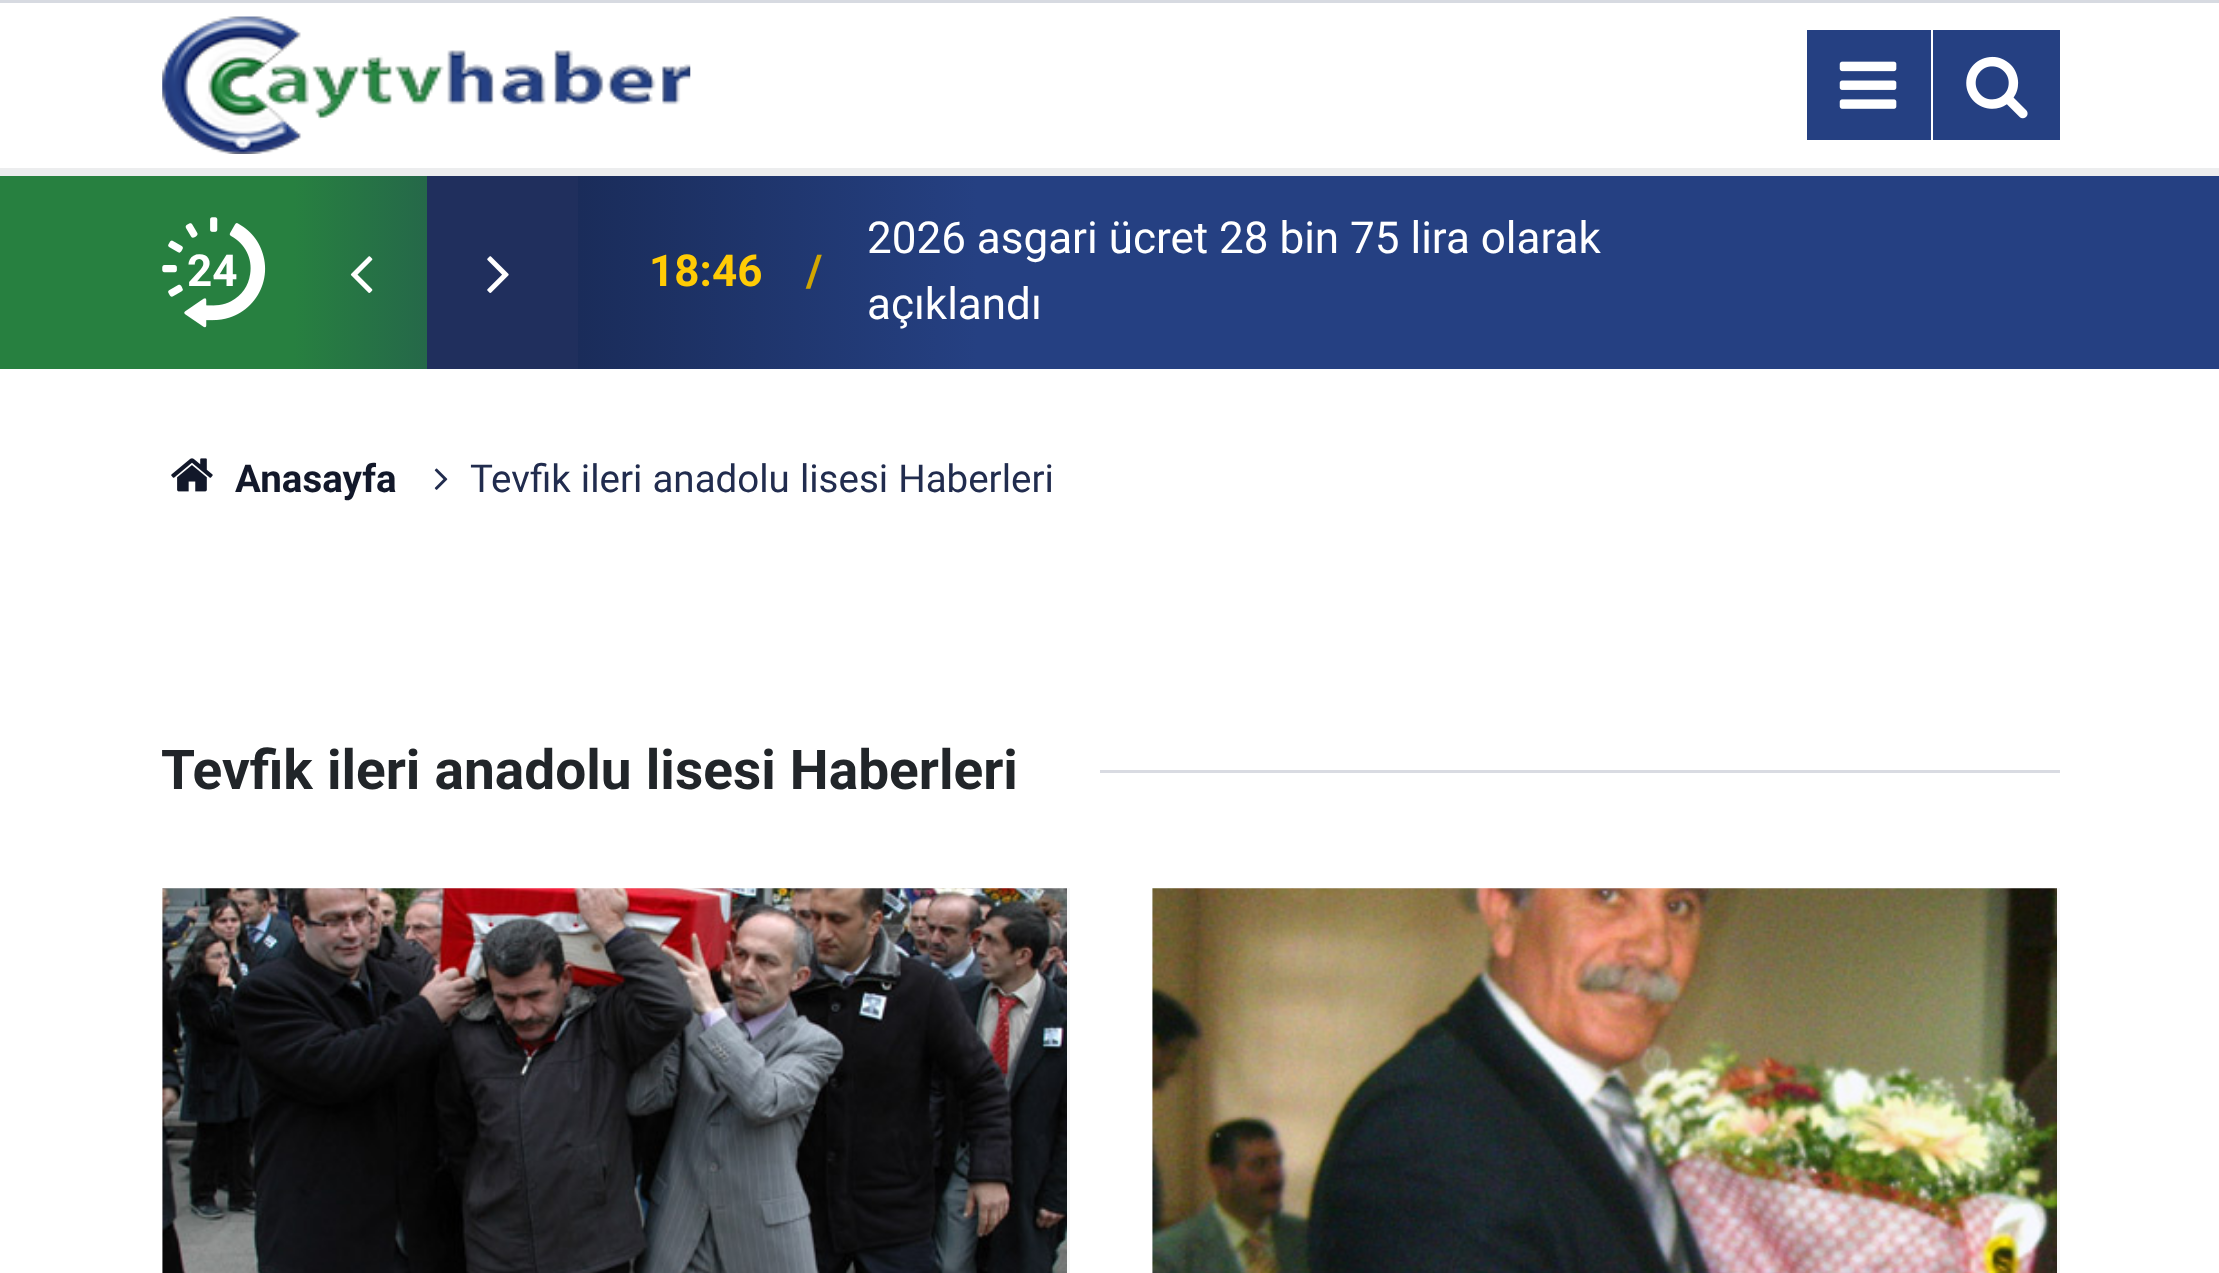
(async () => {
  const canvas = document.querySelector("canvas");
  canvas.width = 2219;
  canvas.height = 1273;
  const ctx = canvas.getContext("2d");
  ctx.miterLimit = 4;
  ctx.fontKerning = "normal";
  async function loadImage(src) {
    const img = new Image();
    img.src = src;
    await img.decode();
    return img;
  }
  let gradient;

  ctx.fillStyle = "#ffffff";
  ctx.fillRect(0, 0, 2219, 1273);
  ctx.fillStyle = "#d7dae1";
  ctx.fillRect(0, 0, 2219, 3);
  ctx.fillStyle = "#ecedee";
  ctx.fillRect(0, 168, 2219, 8);
  ctx.drawImage(await loadImage("img/1.png"), 162, 16, 529, 138);
  ctx.fillStyle = "#254082";
  ctx.fillRect(1807, 30, 124, 110);
  ctx.drawImage(await loadImage("img/2.png"), 1839, 61, 58, 48);
  ctx.fillRect(1933, 30, 127, 110);
  ctx.drawImage(await loadImage("img/3.png"), 1966, 56, 62, 63);
  ctx.fillStyle = "#278040";
  ctx.fillRect(0, 176, 162, 193);
  ctx.fillStyle = "#254082";
  ctx.fillRect(2060, 176, 159, 193);
  gradient = ctx.createLinearGradient(161, 272, 2058, 272);
  gradient.addColorStop(0.07, "#278040");
  gradient.addColorStop(0.14, "#256849");
  gradient.addColorStop(0.14, "#202f5d");
  gradient.addColorStop(0.22, "#202f5d");
  gradient.addColorStop(0.22, "#1a2c5a");
  gradient.addColorStop(0.43, "#254082");
  ctx.fillStyle = gradient;
  ctx.fillRect(162, 176, 1898, 193);
  ctx.drawImage(await loadImage("img/4.png"), 162, 217, 104, 111);
  ctx.drawImage(await loadImage("img/5.png"), 350, 256, 23, 37);
  ctx.drawImage(await loadImage("img/6.png"), 487, 256, 22, 37);
  ctx.drawImage(await loadImage("img/7.png"), 171, 458, 42, 34);
  ctx.drawImage(await loadImage("img/8.png"), 434, 468, 14, 22);
  ctx.fillStyle = "#d9dbe2";
  ctx.fillRect(1100, 770, 960, 3);
  ctx.fillStyle = "#f8f8f8";
  ctx.fillRect(162, 888, 908, 385);
  ctx.drawImage(await loadImage("img/9.png"), 162, 888, 905, 385);
  ctx.fillRect(1152, 888, 908, 385);
  ctx.drawImage(await loadImage("img/10.png"), 1152, 888, 905, 385);
  ctx.font = "bold 44px Roboto";
  ctx.fillStyle = "#ffffff";
  ctx.fillText("24", 187, 286);
  ctx.fillStyle = "#ffcb05";
  ctx.fillText("18:46", 649, 286);
  ctx.fillStyle = "#d1a600";
  ctx.fillText("/", 806, 286);
  ctx.font = "44px Roboto";
  ctx.fillStyle = "#ffffff";
  ctx.fillText("2026 asgari ücret 28 bin 75 lira olarak", 867, 253);
  ctx.fillText("açıklandı", 867, 319);
  ctx.font = "bold 38.5px Roboto";
  ctx.fillStyle = "#12182a";
  ctx.fillText("Anasayfa", 235, 492);
  ctx.wordSpacing = "0.5px";
  ctx.font = "38.5px Roboto";
  ctx.fillStyle = "#212c4e";
  ctx.fillText("Tevfik ileri anadolu lisesi Haberleri", 470, 492);
  ctx.font = "bold 55px Roboto";
  ctx.fillStyle = "#212529";
  ctx.fillText("Tevfik ileri anadolu lisesi Haberleri", 161, 789);
})();
